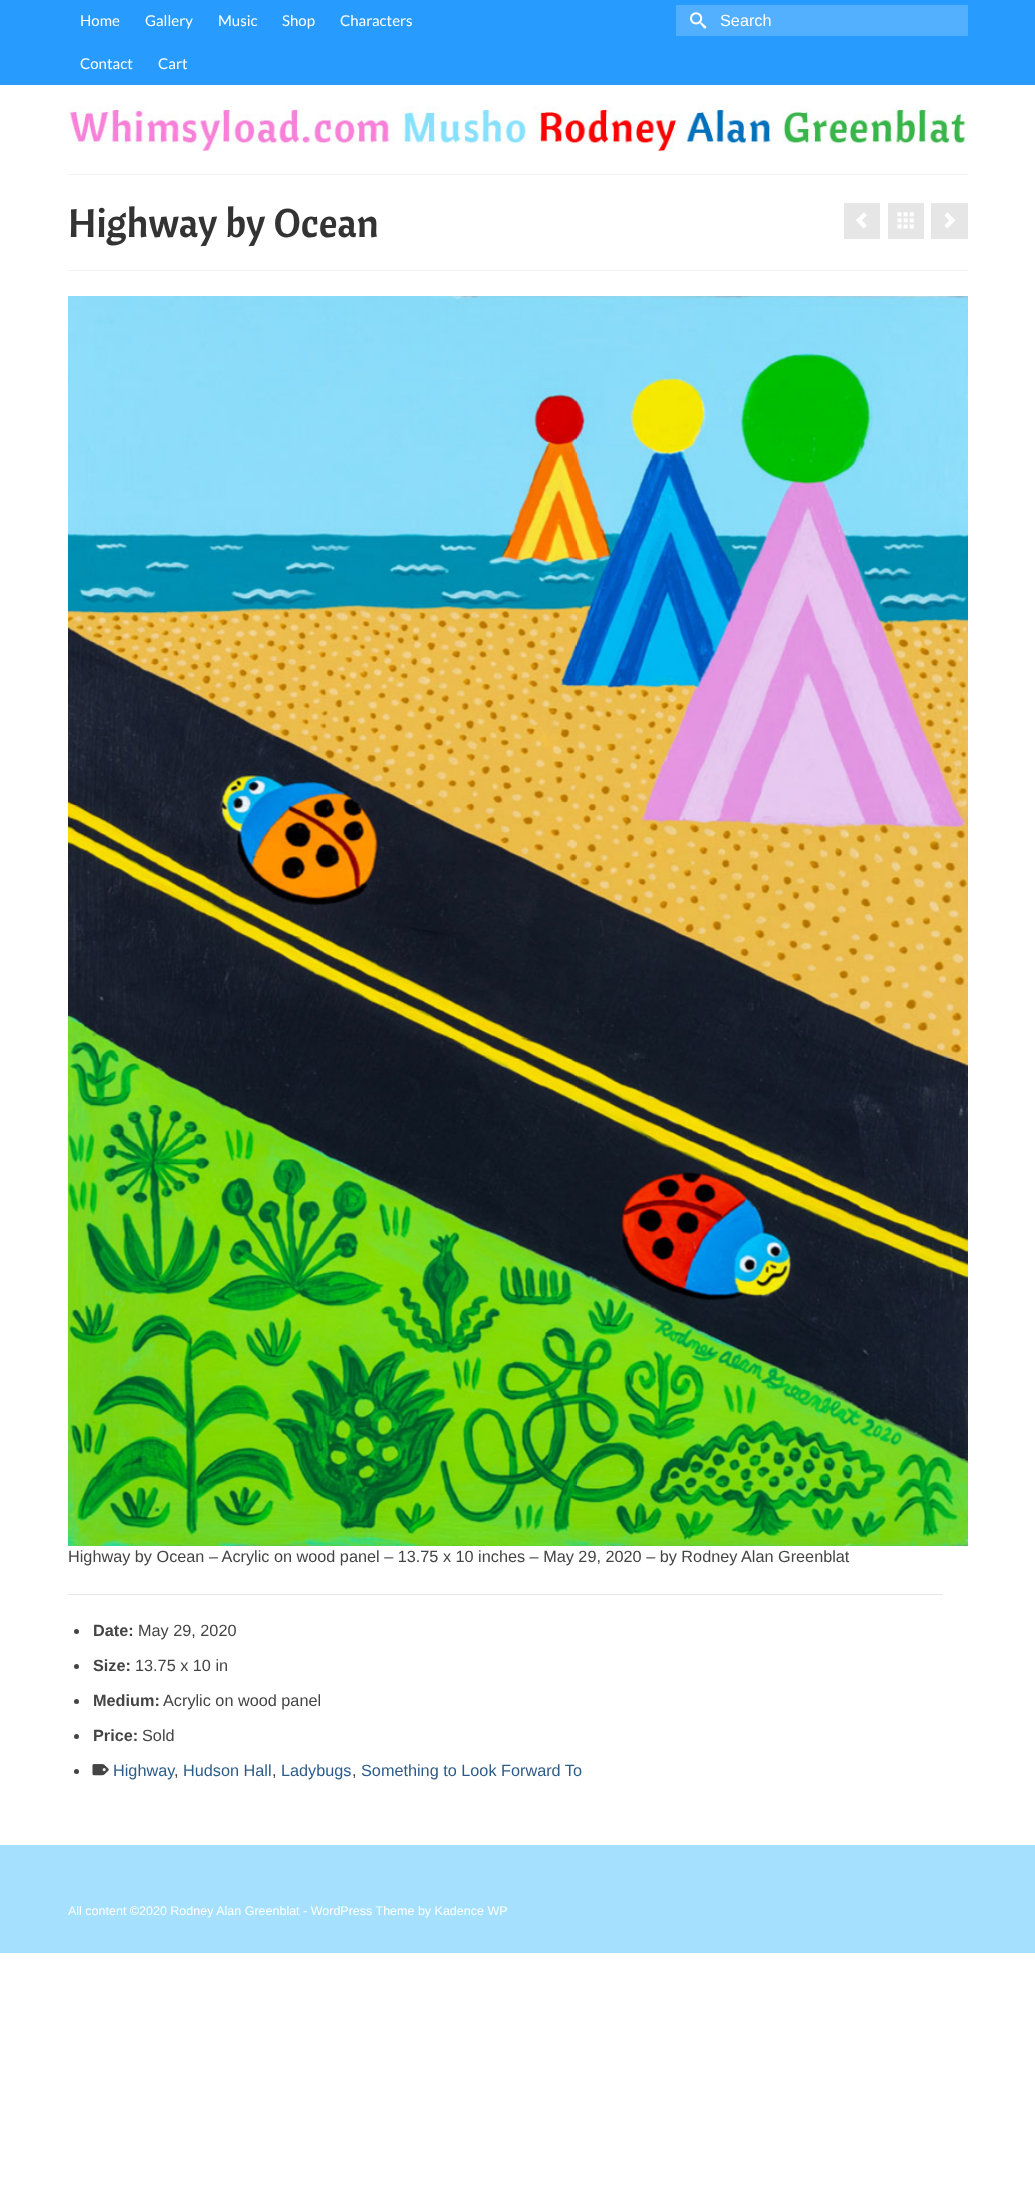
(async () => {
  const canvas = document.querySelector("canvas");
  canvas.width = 1035;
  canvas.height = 2185;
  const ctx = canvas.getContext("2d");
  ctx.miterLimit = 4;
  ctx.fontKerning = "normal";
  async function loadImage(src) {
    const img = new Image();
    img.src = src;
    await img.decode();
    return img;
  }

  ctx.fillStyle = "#ffffff";
  ctx.fillRect(0, 0, 1035, 2185);
  ctx.fillStyle = "#289bff";
  ctx.fillRect(0, 0, 1035, 85);
  ctx.fillStyle = "#53afff";
  ctx.fillRect(676, 5, 292, 31);
  ctx.drawImage(await loadImage("img/1.png"), 690, 12, 17, 17);
  ctx.drawImage(await loadImage("img/2.png"), 67, 106, 901, 46);
  for (const [x, y, w, h, color] of [
    [68, 174, 900, 1, "#f2f2f2"],
    [68, 270, 900, 1, "#f2f2f2"],
    [844, 203, 36, 36, "#e6e6e6"],
    [888, 203, 36, 36, "#e6e6e6"],
    [931, 203, 37, 36, "#e6e6e6"],
  ]) {
    ctx.fillStyle = color;
    ctx.fillRect(x, y, w, h);
  }
  ctx.drawImage(await loadImage("img/3.png"), 856, 212, 11, 17);
  ctx.drawImage(await loadImage("img/4.png"), 897, 212, 17, 17);
  ctx.drawImage(await loadImage("img/5.png"), 944, 212, 12, 17);
  ctx.drawImage(await loadImage("img/6.png"), 68, 296, 900, 1250);
  ctx.fillRect(68, 1594, 875, 1);
  ctx.fillStyle = "#444444";
  ctx.beginPath();
  ctx.arc(76.5, 1631.5, 2.5, 0, Math.PI * 2);
  ctx.fill();
  ctx.beginPath();
  ctx.arc(76.5, 1666.5, 2.5, 0, Math.PI * 2);
  ctx.fill();
  ctx.beginPath();
  ctx.arc(76.5, 1701.5, 2.5, 0, Math.PI * 2);
  ctx.fill();
  ctx.beginPath();
  ctx.arc(76.5, 1736.5, 2.5, 0, Math.PI * 2);
  ctx.fill();
  ctx.beginPath();
  ctx.arc(76.5, 1771.5, 2.5, 0, Math.PI * 2);
  ctx.fill();
  ctx.drawImage(await loadImage("img/7.png"), 92, 1764, 17, 12);
  ctx.fillStyle = "#a5e1ff";
  ctx.fillRect(0, 1845, 1035, 108);
  ctx.font = "15px Lato";
  ctx.fillStyle = "#ffffff";
  for (const [text, x, y] of [
    ["Home", 80, 26],
    ["Gallery", 145, 26],
    ["Music", 218, 26],
    ["Shop", 282, 26],
    ["Characters", 340, 26],
    ["Contact", 80, 69],
    ["Cart", 158, 69],
  ]) {
    ctx.fillText(text, x, y);
  }
  ctx.font = "16.25px Liberation Sans";
  ctx.fillText("Search", 720, 26);
  ctx.font = "40px Cantora One";
  ctx.fillStyle = "#333333";
  ctx.fillText("Highway by Ocean", 68, 237);
  ctx.font = "16.25px Liberation Sans";
  ctx.fillStyle = "#444444";
  ctx.fillText("Highway by Ocean – Acrylic on wood panel – 13.75 x 10 inches – May 29, 2020 – by Rodney Alan Greenblat", 68, 1562);
  ctx.font = "bold 16.25px Liberation Sans";
  ctx.fillText("Date:", 93, 1636);
  ctx.font = "16.25px Liberation Sans";
  ctx.fillText("May 29, 2020", 138, 1636);
  ctx.font = "bold 16.25px Liberation Sans";
  ctx.fillText("Size:", 93, 1671);
  ctx.font = "16.25px Liberation Sans";
  ctx.fillText("13.75 x 10 in", 135, 1671);
  ctx.font = "bold 16.25px Liberation Sans";
  ctx.fillText("Medium:", 93, 1706);
  ctx.font = "16.25px Liberation Sans";
  ctx.fillText("Acrylic on wood panel", 163, 1706);
  ctx.font = "bold 16.25px Liberation Sans";
  ctx.fillText("Price:", 93, 1741);
  ctx.font = "16.25px Liberation Sans";
  ctx.fillText("Sold", 142, 1741);
  ctx.fillStyle = "#2d5c88";
  for (const [text, x, y] of [
    ["Highway", 113, 1776],
    ["Hudson Hall", 183, 1776],
    ["Ladybugs", 281, 1776],
    ["Something to Look Forward To", 361, 1776],
  ]) {
    ctx.fillText(text, x, y);
  }
  ctx.fillStyle = "#444444";
  for (const [text, x, y] of [
    [",", 174, 1776],
    [",", 272, 1776],
    [",", 352, 1776],
  ]) {
    ctx.fillText(text, x, y);
  }
  ctx.font = "12.5px Liberation Sans";
  ctx.fillStyle = "#ffffff";
  ctx.fillText("All content ©2020 Rodney Alan Greenblat - WordPress Theme by Kadence WP", 68, 1915);
})();
